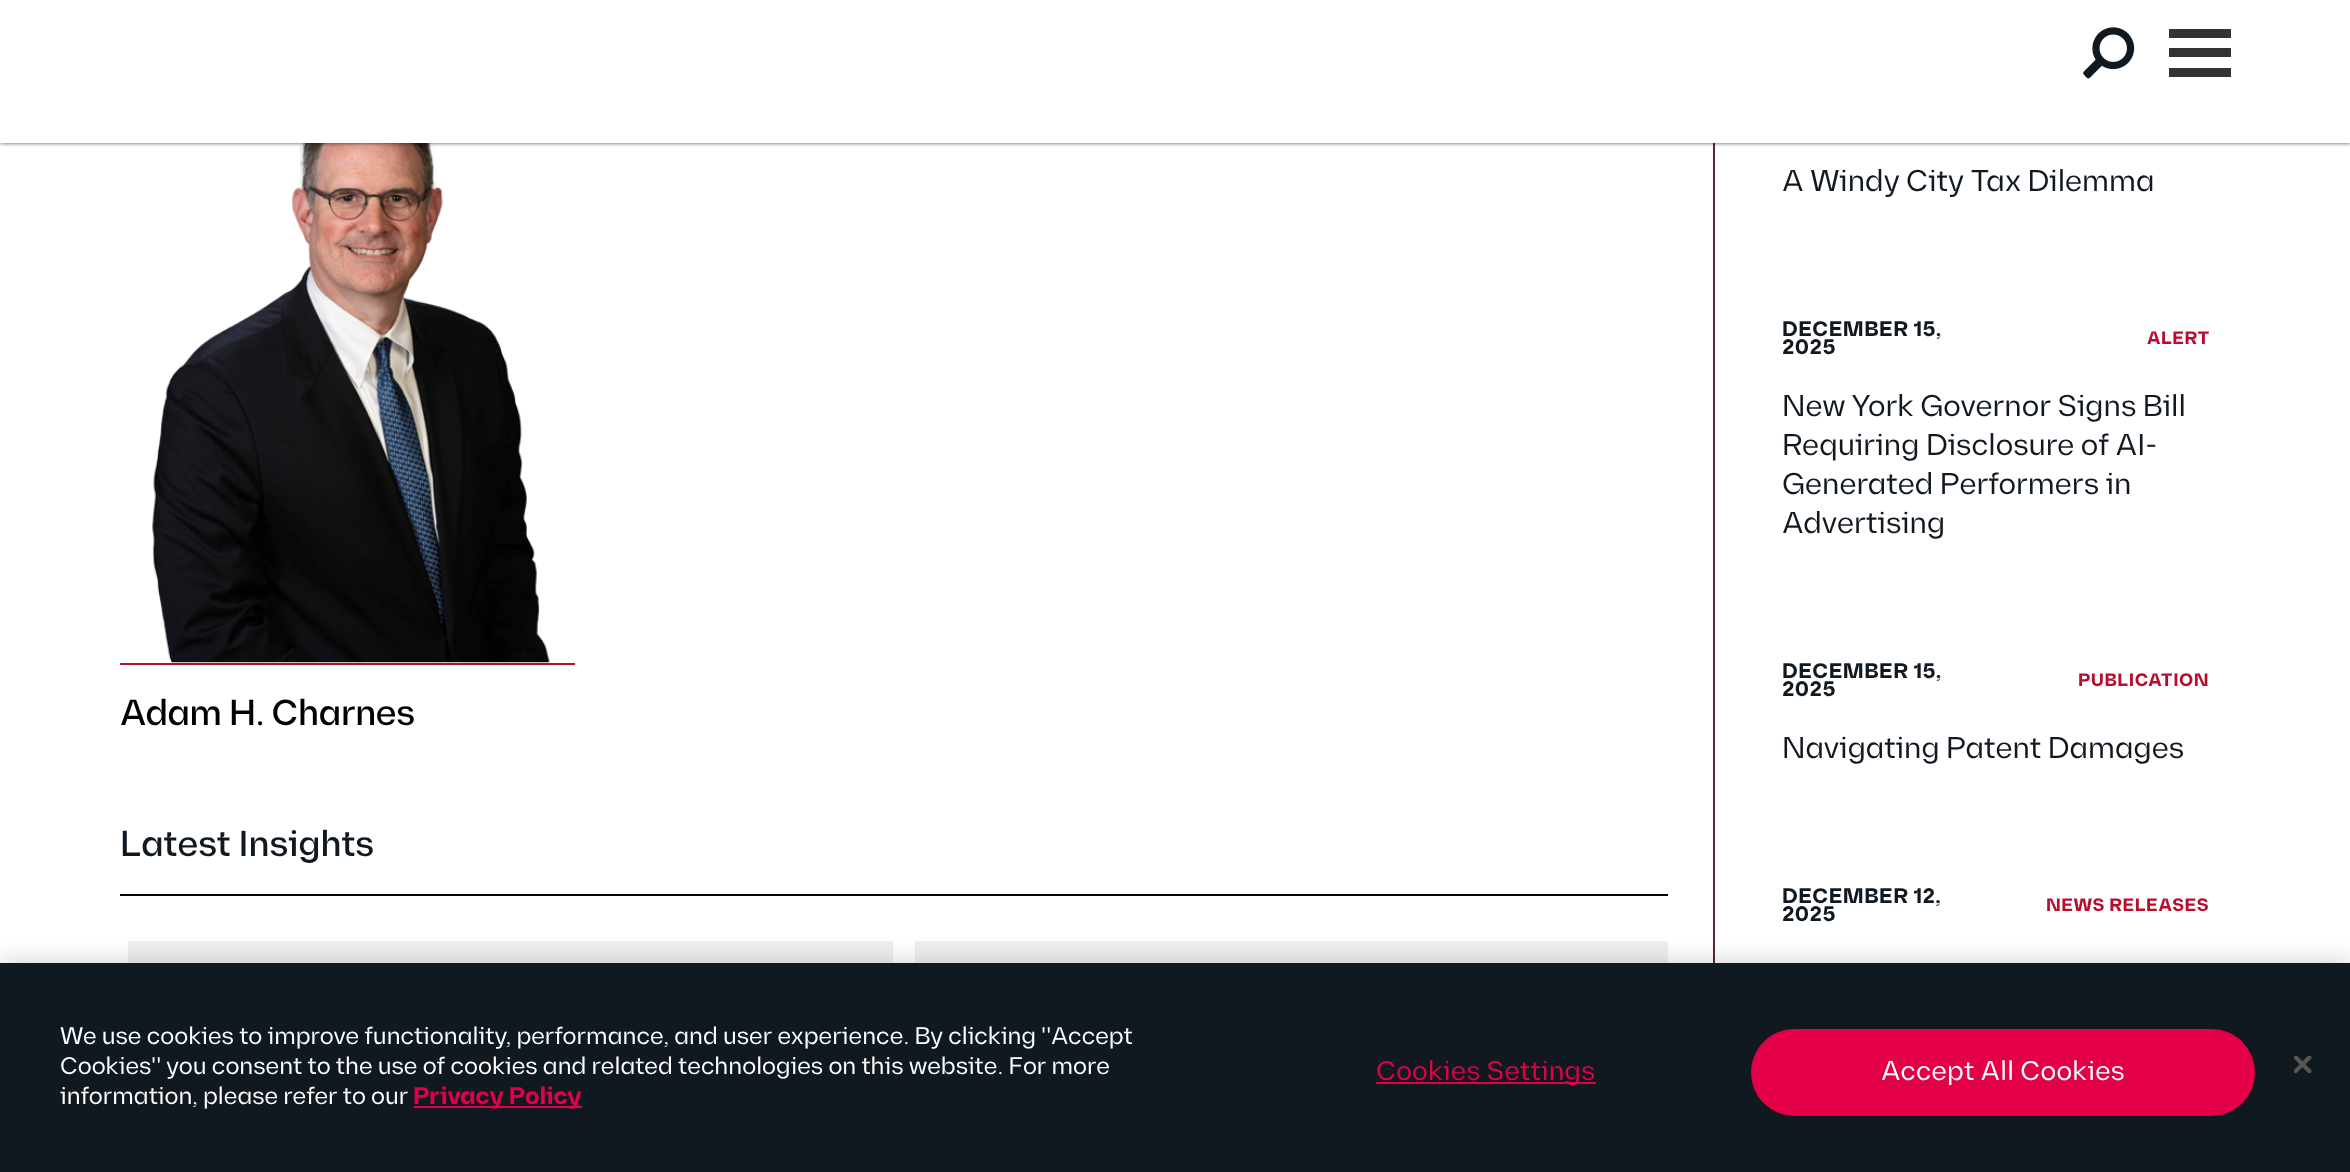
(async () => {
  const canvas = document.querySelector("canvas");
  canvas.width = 2350;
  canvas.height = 1172;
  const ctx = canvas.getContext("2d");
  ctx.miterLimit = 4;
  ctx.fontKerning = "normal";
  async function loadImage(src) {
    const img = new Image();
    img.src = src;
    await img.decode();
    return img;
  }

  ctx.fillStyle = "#ffffff";
  ctx.fillRect(0, 0, 2350, 1172);
  ctx.fillStyle = "#612141";
  ctx.fillRect(1713, 143, 2, 820);
  ctx.drawImage(await loadImage("img/2.png"), 152, 143, 398, 520);
  ctx.fillStyle = "rgba(0, 0, 0, 0.7)";
  ctx.filter = "blur(2px)";
  ctx.beginPath();
  ctx.rect(0, 0, 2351, 143);
  ctx.fill();
  ctx.filter = "none";
  ctx.fillStyle = "#ffffff";
  ctx.fillRect(0, 0, 2350, 143);
  ctx.drawImage(await loadImage("img/1.png"), 2083, 27, 52, 52);
  for (const [x, y, w, h, color] of [
    [2169, 48, 62, 9, "#333333"],
    [2169, 29, 62, 9, "#333333"],
    [2169, 68, 62, 9, "#333333"],
    [120, 663, 455, 2, "#ba0c2f"],
    [120, 894, 1548, 2, "#000000"],
    [128, 941, 765, 22, "#f0f0f0"],
    [915, 941, 753, 22, "#f0f0f0"],
  ]) {
    ctx.fillStyle = color;
    ctx.fillRect(x, y, w, h);
  }
  ctx.fillStyle = "rgba(0, 0, 0, 0.2)";
  ctx.filter = "blur(13.5px)";
  ctx.beginPath();
  ctx.rect(0, 963, 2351, 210);
  ctx.fill();
  ctx.filter = "none";
  for (const [x, y, w, h, color] of [
    [0, 963, 2350, 209, "#101820"],
    [414, 1106, 168, 2, "#e40046"],
    [1376, 1082, 220, 2, "#e40046"],
  ]) {
    ctx.fillStyle = color;
    ctx.fillRect(x, y, w, h);
  }
  ctx.beginPath();
  ctx.roundRect(1751, 1029, 504, 87, 43.5);
  ctx.fill();
  ctx.drawImage(await loadImage("img/3.png"), 2294, 1056, 18, 18);
  ctx.letterSpacing = "-0.4px";
  ctx.font = "500 36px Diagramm";
  ctx.fillStyle = "#000000";
  ctx.fillText("Adam H. Charnes", 120, 725);
  ctx.letterSpacing = "0px";
  ctx.fillStyle = "#101820";
  ctx.fillText("Latest Insights", 120, 856);
  ctx.font = "30px Diagramm";
  ctx.fillText("A Windy City Tax Dilemma", 1782, 191);
  ctx.letterSpacing = "0.5px";
  ctx.font = "bold 21px Diagramm";
  ctx.fillText("DECEMBER 15,", 1782, 336);
  ctx.fillText("2025", 1782, 354);
  ctx.font = "bold 18px Diagramm";
  ctx.fillStyle = "#ba0c2f";
  ctx.fillText("ALERT", 2147, 344);
  ctx.letterSpacing = "0px";
  ctx.font = "30px Diagramm";
  ctx.fillStyle = "#101820";
  for (const [text, x, y] of [
    ["New York Governor Signs Bill", 1782, 416],
    ["Requiring Disclosure of AI-", 1782, 455],
    ["Generated Performers in", 1782, 494],
    ["Advertising", 1782, 533],
  ]) {
    ctx.fillText(text, x, y);
  }
  ctx.letterSpacing = "0.5px";
  ctx.font = "bold 21px Diagramm";
  ctx.fillText("DECEMBER 15,", 1782, 678);
  ctx.fillText("2025", 1782, 696);
  ctx.font = "bold 18px Diagramm";
  ctx.fillStyle = "#ba0c2f";
  ctx.fillText("PUBLICATION", 2078, 686);
  ctx.letterSpacing = "0px";
  ctx.font = "30px Diagramm";
  ctx.fillStyle = "#101820";
  ctx.fillText("Navigating Patent Damages", 1782, 758);
  ctx.letterSpacing = "0.5px";
  ctx.font = "bold 21px Diagramm";
  ctx.fillText("DECEMBER 12,", 1782, 903);
  ctx.fillText("2025", 1782, 921);
  ctx.font = "bold 18px Diagramm";
  ctx.fillStyle = "#ba0c2f";
  ctx.fillText("NEWS RELEASES", 2046, 911);
  ctx.letterSpacing = "0px";
  ctx.font = "24px Diagramm";
  ctx.fillStyle = "#ffffff";
  for (const [text, x, y] of [
    ["We use cookies to improve functionality, performance, and user experience. By clicking \"Accept", 60, 1044],
    ["Cookies\" you consent to the use of cookies and related technologies on this website. For more", 60, 1074],
    ["information, please refer to our", 60, 1104],
  ]) {
    ctx.fillText(text, x, y);
  }
  ctx.font = "bold 24px Diagramm";
  ctx.fillStyle = "#e40046";
  ctx.fillText("Privacy Policy", 413, 1104);
  ctx.letterSpacing = "0.25px";
  ctx.font = "27px Diagramm";
  ctx.fillText("Cookies Settings", 1376, 1080);
  ctx.fillStyle = "#ffffff";
  ctx.fillText("Accept All Cookies", 1881, 1080);
})();
